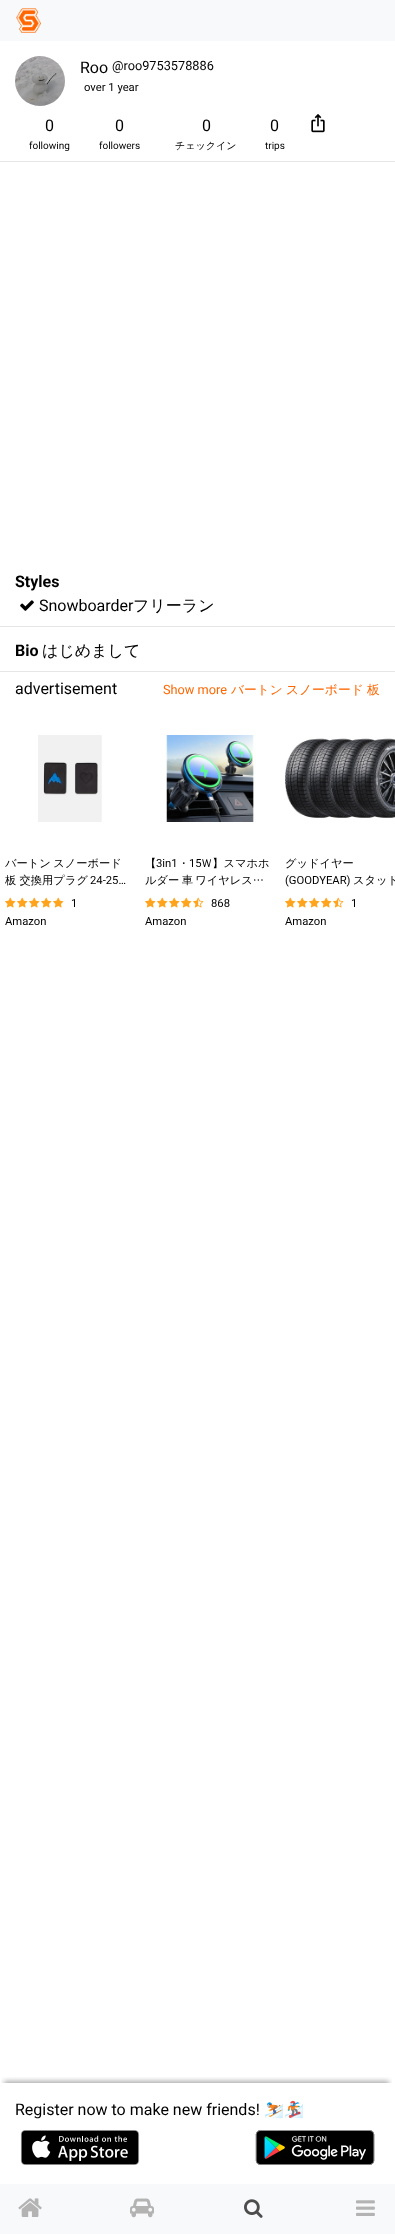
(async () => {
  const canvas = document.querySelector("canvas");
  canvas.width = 395;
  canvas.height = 2234;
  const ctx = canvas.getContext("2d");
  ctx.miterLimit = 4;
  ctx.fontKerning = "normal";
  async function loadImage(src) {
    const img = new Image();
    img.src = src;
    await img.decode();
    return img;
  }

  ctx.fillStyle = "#ffffff";
  ctx.fillRect(0, 0, 395, 2234);
  ctx.fillStyle = "#f8f9fa";
  ctx.fillRect(0, 0, 395, 41);
  ctx.drawImage(await loadImage("img/1.png"), 16, 8, 25, 25);
  ctx.fillStyle = "#f0f0f0";
  ctx.beginPath();
  ctx.arc(40, 81, 25, 0, Math.PI * 2);
  ctx.fill();
  ctx.drawImage(await loadImage("img/2.png"), 15, 56, 50, 50);
  ctx.fillStyle = "#e6e6e6";
  ctx.fillRect(0, 161, 395, 1);
  ctx.drawImage(await loadImage("img/3.png"), 311, 114, 14, 19);
  ctx.fillRect(0, 626, 395, 1);
  ctx.drawImage(await loadImage("img/4.png"), 20, 600, 14, 11);
  ctx.fillRect(0, 671, 395, 1);
  ctx.drawImage(await loadImage("img/5.png"), 38, 735, 64, 87);
  ctx.drawImage(await loadImage("img/6.png"), 5, 897, 11, 11);
  ctx.drawImage(await loadImage("img/6.png"), 17, 897, 11, 11);
  ctx.drawImage(await loadImage("img/6.png"), 29, 897, 11, 11);
  ctx.drawImage(await loadImage("img/6.png"), 41, 897, 11, 11);
  ctx.drawImage(await loadImage("img/6.png"), 53, 897, 11, 11);
  ctx.drawImage(await loadImage("img/7.png"), 166, 735, 90, 87);
  ctx.drawImage(await loadImage("img/6.png"), 145, 897, 11, 11);
  ctx.drawImage(await loadImage("img/6.png"), 157, 897, 11, 11);
  ctx.drawImage(await loadImage("img/6.png"), 169, 897, 11, 11);
  ctx.drawImage(await loadImage("img/6.png"), 181, 897, 11, 11);
  ctx.drawImage(await loadImage("img/8.png"), 193, 897, 11, 11);
  ctx.drawImage(await loadImage("img/9.png"), 285, 738, 110, 80);
  ctx.drawImage(await loadImage("img/6.png"), 285, 897, 11, 11);
  ctx.drawImage(await loadImage("img/6.png"), 297, 897, 11, 11);
  ctx.drawImage(await loadImage("img/6.png"), 309, 897, 11, 11);
  ctx.drawImage(await loadImage("img/6.png"), 321, 897, 11, 11);
  ctx.drawImage(await loadImage("img/8.png"), 333, 897, 11, 11);
  ctx.save();
  ctx.beginPath();
  ctx.rect(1, 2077, 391, 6);
  ctx.clip();
  ctx.fillStyle = "rgba(0, 0, 0, 0.33)";
  ctx.filter = "blur(2.5px)";
  ctx.beginPath();
  ctx.rect(4, 2081, 385, 95);
  ctx.fill();
  ctx.filter = "none";
  ctx.restore();
  ctx.drawImage(await loadImage("img/10.png"), 20, 2130, 120, 35);
  ctx.drawImage(await loadImage("img/11.png"), 255, 2130, 120, 35);
  ctx.fillStyle = "#f8f9fa";
  ctx.fillRect(0, 2184, 395, 50);
  ctx.drawImage(await loadImage("img/12.png"), 18, 2198, 24, 19);
  ctx.drawImage(await loadImage("img/13.png"), 130, 2198, 24, 20);
  ctx.drawImage(await loadImage("img/14.png"), 244, 2199, 19, 19);
  ctx.drawImage(await loadImage("img/15.png"), 356, 2200, 19, 16);
  ctx.font = "16px Roboto";
  ctx.fillStyle = "#000000";
  ctx.fillText("Roo", 80, 73);
  ctx.font = "12.75px Roboto";
  ctx.fillText("@roo9753578886", 112, 70);
  ctx.font = "11.25px Roboto";
  ctx.fillText("over 1 year", 84, 91);
  ctx.font = "16px Roboto";
  ctx.fillText("0", 45, 131);
  ctx.font = "10px Roboto";
  ctx.fillText("following", 29, 149);
  ctx.font = "16px Roboto";
  ctx.fillText("0", 115, 131);
  ctx.font = "10px Roboto";
  ctx.fillText("followers", 99, 149);
  ctx.font = "16px Roboto";
  ctx.fillText("0", 202, 131);
  ctx.font = "500 10px WenQuanYi Zen Hei";
  ctx.fillText("チェックイン", 175, 149);
  ctx.font = "16px Roboto";
  ctx.fillText("0", 270, 131);
  ctx.font = "10px Roboto";
  ctx.fillText("trips", 265, 149);
  ctx.font = "bold 16px Roboto";
  ctx.fillText("Styles", 15, 587);
  ctx.font = "16px Roboto";
  ctx.fillText("Snowboarder", 39, 611);
  ctx.font = "500 16px WenQuanYi Zen Hei";
  ctx.fillText("フリーラン", 133, 611);
  ctx.font = "bold 16px Roboto";
  ctx.fillText("Bio", 15, 656);
  ctx.font = "500 16px WenQuanYi Zen Hei";
  ctx.fillText("はじめまして", 42, 656);
  ctx.font = "16px Roboto";
  ctx.fillText("advertisement", 15, 694);
  ctx.font = "12.75px Roboto";
  ctx.fillStyle = "#ff6600";
  ctx.fillText("Show more", 163, 694);
  ctx.font = "500 12.75px WenQuanYi Zen Hei";
  for (const [text, x, y] of [
    ["バートン", 231, 694],
    ["スノーボード", 286, 694],
    ["板", 367, 694],
  ]) {
    ctx.fillText(text, x, y);
  }
  ctx.wordSpacing = "-1px";
  ctx.font = "500 11.25px WenQuanYi Zen Hei";
  ctx.fillStyle = "#000000";
  ctx.fillText("バートン スノーボード", 5, 867);
  ctx.wordSpacing = "0px";
  ctx.fillText("板 交換用プラグ", 5, 884);
  ctx.font = "11.25px Roboto";
  for (const [text, x, y] of [
    ["24-25…", 90, 884],
    ["1", 71, 907],
    ["Amazon", 5, 925],
  ]) {
    ctx.fillText(text, x, y);
  }
  ctx.font = "500 11.25px WenQuanYi Zen Hei";
  ctx.fillText("【", 145, 867);
  ctx.font = "11.25px Roboto";
  ctx.fillText("3in1", 156, 867);
  ctx.font = "500 11.25px WenQuanYi Zen Hei";
  ctx.fillText("・", 178, 867);
  ctx.font = "11.25px Roboto";
  ctx.fillText("15", 189, 867);
  ctx.font = "500 11.25px WenQuanYi Zen Hei";
  ctx.fillText("Ｗ】スマホホ", 201, 867);
  ctx.wordSpacing = "-1px";
  ctx.fillText("ルダー 車 ワイヤレス…", 145, 884);
  ctx.wordSpacing = "0px";
  ctx.font = "11.25px Roboto";
  ctx.fillText("868", 211, 907);
  ctx.fillText("Amazon", 145, 925);
  ctx.font = "500 11.25px WenQuanYi Zen Hei";
  ctx.fillText("グッドイヤー", 285, 867);
  ctx.font = "11.25px Roboto";
  ctx.fillText("(GOODYEAR)", 285, 884);
  ctx.font = "500 11.25px WenQuanYi Zen Hei";
  ctx.fillText("スタッド", 353, 884);
  ctx.font = "11.25px Roboto";
  ctx.fillText("1", 351, 907);
  ctx.fillText("Amazon", 285, 925);
  ctx.font = "16px Roboto";
  ctx.fillText("Register now to make new friends!", 15, 2115);
  ctx.font = "16px Noto Color Emoji";
  ctx.fillText("⛷️🏂", 264, 2115);
})();
